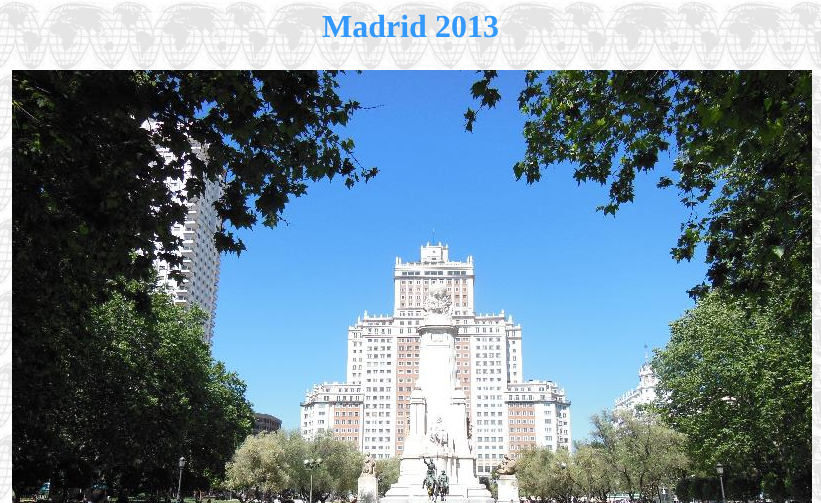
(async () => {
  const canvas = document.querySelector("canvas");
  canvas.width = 821;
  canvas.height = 503;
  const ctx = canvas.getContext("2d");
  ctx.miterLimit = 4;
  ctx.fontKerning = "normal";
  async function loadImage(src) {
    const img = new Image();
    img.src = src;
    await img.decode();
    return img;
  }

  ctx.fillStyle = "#ffffff";
  ctx.fillRect(0, 0, 821, 503);
  ctx.drawImage(await loadImage("img/1.png"), 0, 1, 821, 502);
  ctx.drawImage(await loadImage("img/2.png"), 12, 70, 800, 433);
  ctx.font = "bold 32px Liberation Serif";
  ctx.fillStyle = "#3399ff";
  ctx.fillText("Madrid 2013", 322, 37);
})();
